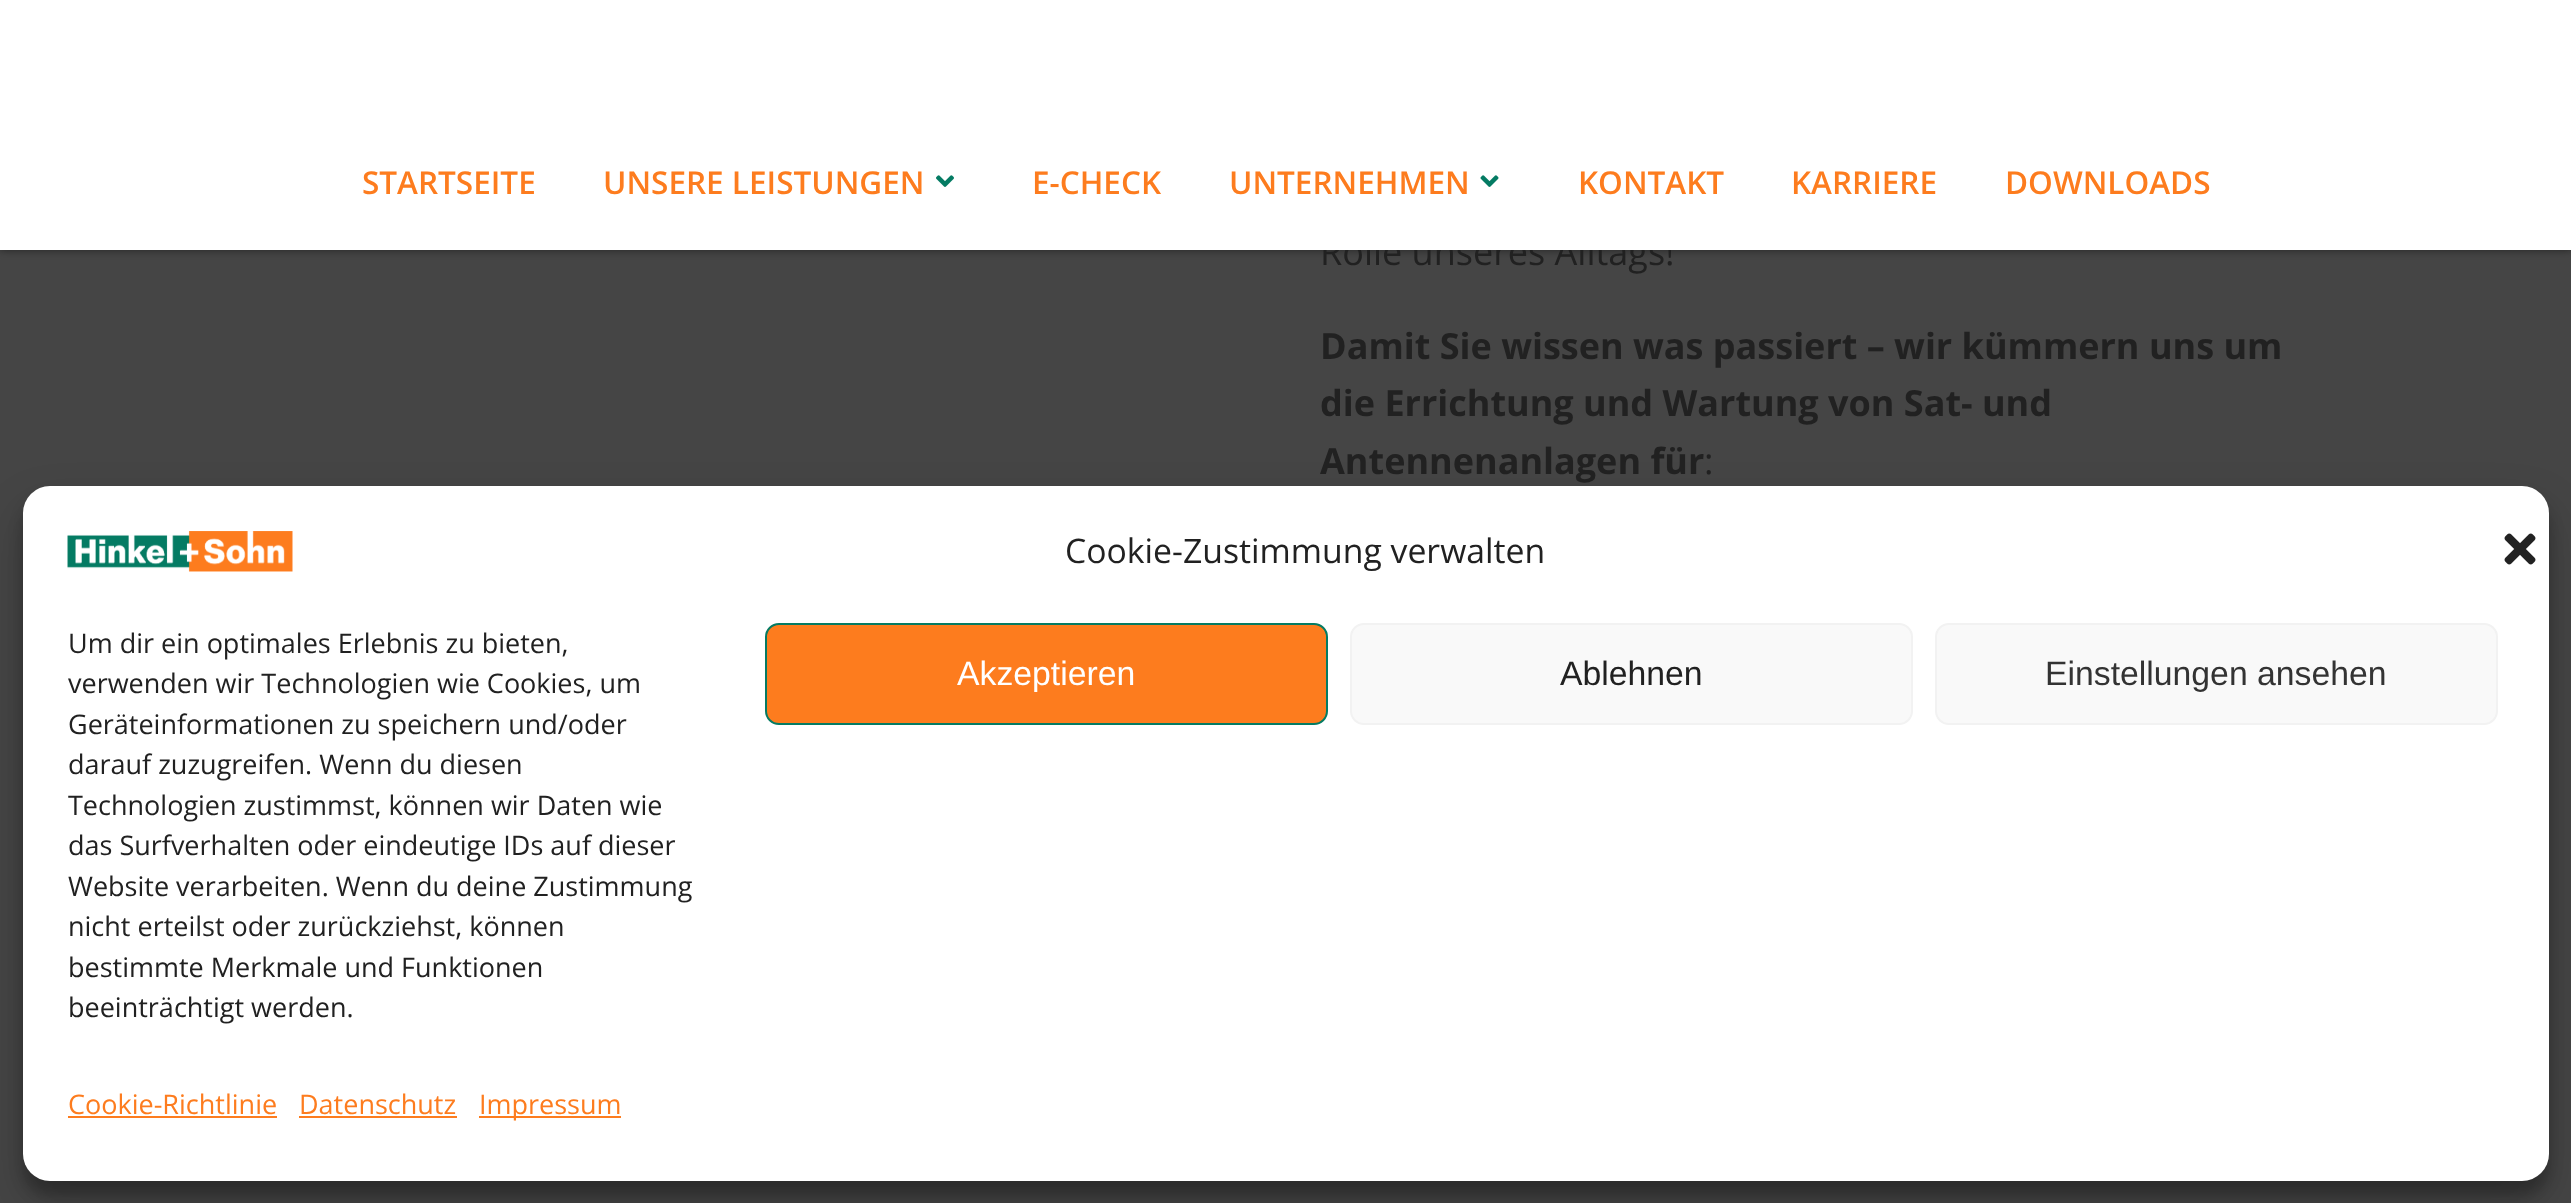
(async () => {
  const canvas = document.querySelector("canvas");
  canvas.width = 2571;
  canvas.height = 1203;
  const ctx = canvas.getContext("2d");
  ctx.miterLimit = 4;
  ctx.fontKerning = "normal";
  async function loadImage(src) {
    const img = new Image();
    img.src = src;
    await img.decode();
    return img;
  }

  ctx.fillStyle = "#454545";
  ctx.fillRect(0, 0, 2571, 1203);
  ctx.fillStyle = "rgba(0, 0, 0, 0.5)";
  ctx.filter = "blur(4.5px)";
  ctx.beginPath();
  ctx.rect(0, 0, 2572, 250);
  ctx.fill();
  ctx.filter = "none";
  ctx.fillStyle = "rgba(0, 0, 0, 0.23)";
  ctx.filter = "blur(7px)";
  ctx.beginPath();
  ctx.roundRect(23, 500, 2526, 695, 27);
  ctx.fill();
  ctx.filter = "none";
  ctx.fillStyle = "rgba(0, 0, 0, 0.19)";
  ctx.filter = "blur(22.5px)";
  ctx.beginPath();
  ctx.roundRect(23, 509, 2526, 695, 27);
  ctx.fill();
  ctx.filter = "none";
  ctx.fillStyle = "#ffffff";
  ctx.beginPath();
  ctx.roundRect(23, 486, 2526, 695, 27);
  ctx.fill();
  ctx.drawImage(await loadImage("img/3.png"), 67, 531, 226, 41);
  ctx.drawImage(await loadImage("img/4.png"), 2504, 533, 32, 32);
  ctx.fillStyle = "#fd7c1e";
  ctx.beginPath();
  ctx.roundRect(766, 624, 561, 100, 13);
  ctx.fill();
  ctx.strokeStyle = "#047b63";
  ctx.lineWidth = 2;
  ctx.stroke();
  ctx.fillStyle = "#f9f9f9";
  ctx.beginPath();
  ctx.roundRect(1351, 624, 561, 100, 13);
  ctx.fill();
  ctx.strokeStyle = "#f2f2f2";
  ctx.stroke();
  ctx.beginPath();
  ctx.roundRect(1936, 624, 561, 100, 13);
  ctx.fill();
  ctx.stroke();
  for (const [x, y, w, h, color] of [
    [68, 1116, 209, 2, "#fd7c1e"],
    [299, 1116, 158, 2, "#fd7c1e"],
    [479, 1116, 142, 2, "#fd7c1e"],
  ]) {
    ctx.fillStyle = color;
    ctx.fillRect(x, y, w, h);
  }
  ctx.font = "36px Open Sans";
  ctx.fillStyle = "#212121";
  ctx.fillText("Rolle unseres Alltags!", 1320, 265);
  ctx.fillStyle = "#ffffff";
  ctx.fillRect(0, 0, 2571, 250);
  ctx.font = "600 31.5px Open Sans";
  ctx.fillStyle = "#fd7c1e";
  for (const [text, x, y] of [
    ["DOWNLOADS", 2005, 194],
    ["KARRIERE", 1791, 194],
    ["KONTAKT", 1578, 194],
  ]) {
    ctx.fillText(text, x, y);
  }
  ctx.drawImage(await loadImage("img/2.png"), 1480, 175, 19, 12);
  ctx.fillText("UNTERNEHMEN", 1229, 194);
  ctx.fillText("E-CHECK", 1032, 194);
  ctx.drawImage(await loadImage("img/1.png"), 936, 175, 18, 12);
  ctx.fillText("UNSERE LEISTUNGEN", 603, 194);
  ctx.fillText("STARTSEITE", 362, 194);
  ctx.font = "bold 36px Open Sans";
  ctx.fillStyle = "#212121";
  for (const [text, x, y] of [
    ["Damit Sie wissen was passiert – wir kümmern uns um", 1320, 359],
    ["die Errichtung und Wartung von Sat- und", 1320, 416],
    ["Antennenanlagen für", 1320, 474],
  ]) {
    ctx.fillText(text, x, y);
  }
  ctx.font = "36px Open Sans";
  ctx.fillText(":", 1704, 474);
  ctx.font = "33.75px Open Sans";
  ctx.fillText("Cookie-Zustimmung verwalten", 1065, 563);
  ctx.font = "27px Open Sans";
  for (const [text, x, y] of [
    ["Um dir ein optimales Erlebnis zu bieten,", 68, 653],
    ["verwenden wir Technologien wie Cookies, um", 68, 693],
    ["Geräteinformationen zu speichern und/oder", 68, 734],
    ["darauf zuzugreifen. Wenn du diesen", 68, 774],
  ]) {
    ctx.fillText(text, x, y);
  }
  ctx.save();
  ctx.beginPath();
  ctx.rect(68, 623, 675, 417);
  ctx.clip();
  ctx.fillText("Technologien zustimmst, können wir Daten wie", 68, 815);
  ctx.restore();
  for (const [text, x, y] of [
    ["das Surfverhalten oder eindeutige IDs auf dieser", 68, 855],
    ["Website verarbeiten. Wenn du deine Zustimmung", 68, 896],
    ["nicht erteilst oder zurückziehst, können", 68, 936],
    ["bestimmte Merkmale und Funktionen", 68, 977],
    ["beeinträchtigt werden.", 68, 1017],
  ]) {
    ctx.fillText(text, x, y);
  }
  ctx.font = "33.75px Liberation Sans";
  ctx.fillStyle = "#ffffff";
  ctx.fillText("Akzeptieren", 957, 685);
  ctx.fillStyle = "#212121";
  ctx.fillText("Ablehnen", 1560, 685);
  ctx.fillStyle = "#333333";
  ctx.fillText("Einstellungen ansehen", 2045, 685);
  ctx.font = "27px Open Sans";
  ctx.fillStyle = "#fd7c1e";
  for (const [text, x, y] of [
    ["Cookie-Richtlinie", 68, 1114],
    ["Datenschutz", 299, 1114],
    ["Impressum", 479, 1114],
  ]) {
    ctx.fillText(text, x, y);
  }
})();
